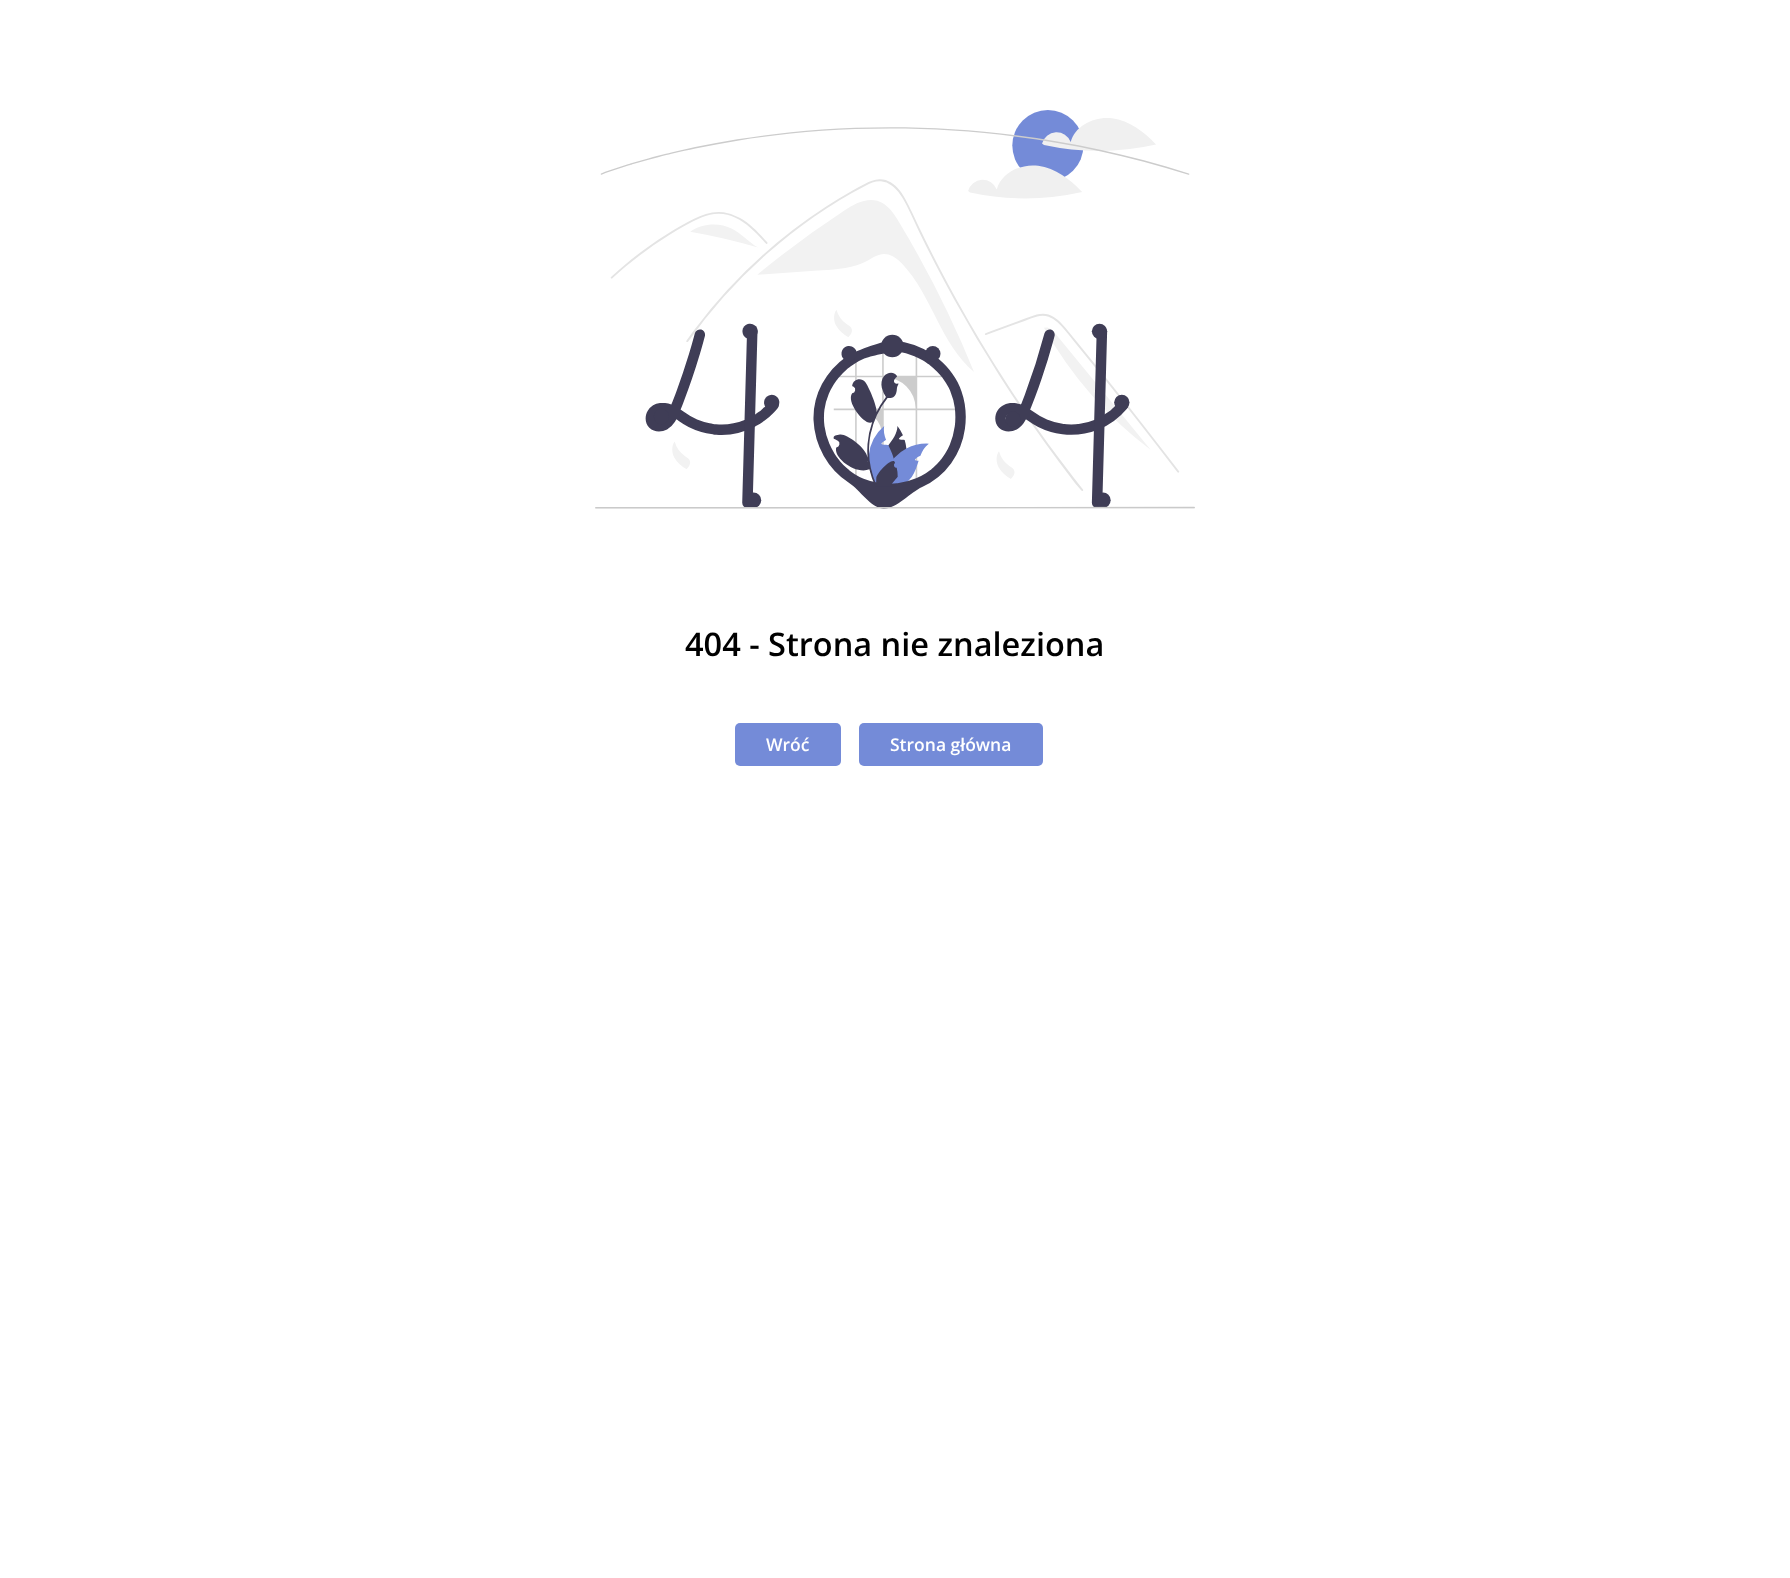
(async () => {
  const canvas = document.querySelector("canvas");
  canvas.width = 1790;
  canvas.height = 1578;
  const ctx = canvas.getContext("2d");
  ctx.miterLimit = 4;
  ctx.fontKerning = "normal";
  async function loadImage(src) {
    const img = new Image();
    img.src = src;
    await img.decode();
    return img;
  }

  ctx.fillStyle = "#ffffff";
  ctx.fillRect(0, 0, 1790, 1578);
  ctx.drawImage(await loadImage("img/1.png"), 595, 110, 600, 399);
  ctx.fillStyle = "#748bd8";
  ctx.beginPath();
  ctx.roundRect(735, 723, 106, 43, 5);
  ctx.fill();
  ctx.beginPath();
  ctx.roundRect(859, 723, 184, 43, 5);
  ctx.fill();
  ctx.font = "600 32.5px Open Sans";
  ctx.fillStyle = "#000000";
  ctx.fillText("404 - Strona nie znaleziona", 685, 656);
  ctx.font = "600 17.5px Open Sans";
  ctx.fillStyle = "#ffffff";
  ctx.fillText("Wróć", 766, 751);
  ctx.fillText("Strona główna", 890, 751);
})();
